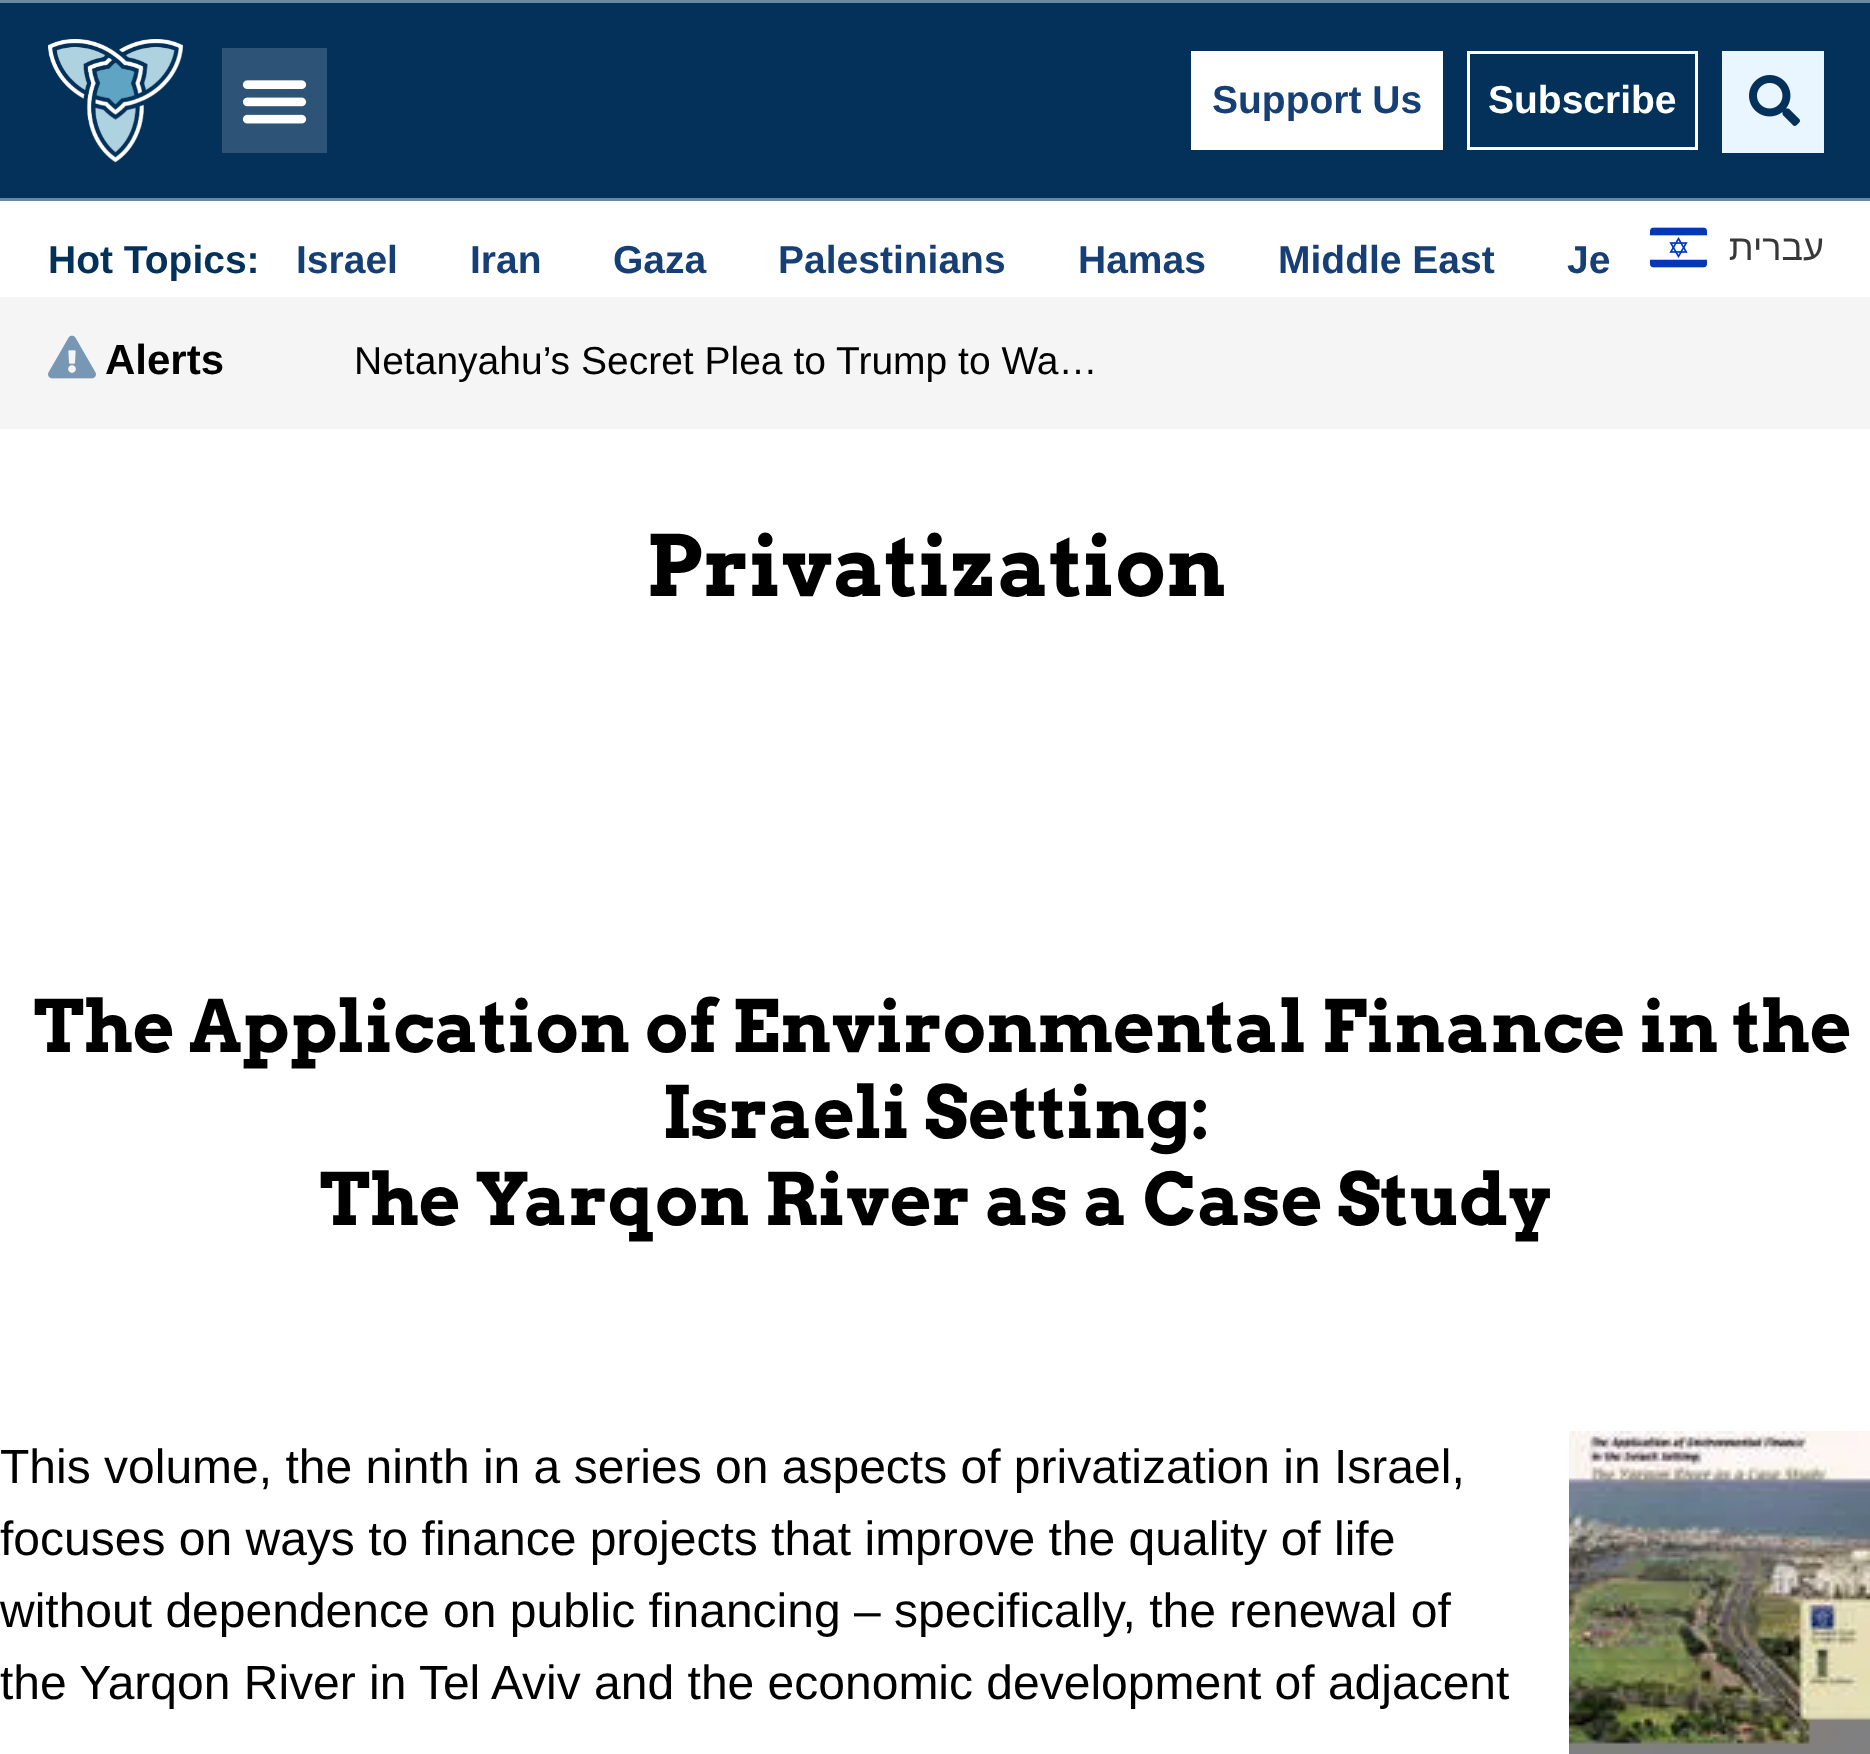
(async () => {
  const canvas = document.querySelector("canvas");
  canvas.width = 1870;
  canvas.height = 1754;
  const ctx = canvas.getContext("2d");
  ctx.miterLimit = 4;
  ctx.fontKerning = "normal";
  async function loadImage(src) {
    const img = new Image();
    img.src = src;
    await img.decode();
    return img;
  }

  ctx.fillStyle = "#ffffff";
  ctx.fillRect(0, 0, 1870, 1754);
  for (const [x, y, w, h, color] of [
    [0, 3, 1870, 195, "#043159"],
    [0, 0, 1870, 3, "#6988a2"],
    [0, 198, 1870, 3, "#6988a2"],
  ]) {
    ctx.fillStyle = color;
    ctx.fillRect(x, y, w, h);
  }
  ctx.drawImage(await loadImage("img/1.png"), 48, 39, 135, 124);
  ctx.fillStyle = "#2d5477";
  ctx.fillRect(222, 48, 105, 105);
  ctx.drawImage(await loadImage("img/2.png"), 242, 80, 65, 44);
  ctx.fillStyle = "#ffffff";
  ctx.fillRect(1191, 51, 252, 99);
  ctx.strokeStyle = "#ffffff";
  ctx.lineWidth = 3;
  ctx.strokeRect(1468.5, 52.5, 228, 96);
  ctx.fillStyle = "#eaf6ff";
  ctx.fillRect(1722, 51, 102, 102);
  ctx.drawImage(await loadImage("img/3.png"), 1749, 75, 51, 51);
  ctx.drawImage(await loadImage("img/4.png"), 1650, 227, 57, 41);
  ctx.fillStyle = "#f5f5f5";
  ctx.fillRect(0, 297, 1870, 132);
  ctx.drawImage(await loadImage("img/5.png"), 48, 335, 48, 44);
  ctx.drawImage(await loadImage("img/6.png"), 1569, 1431, 301, 323);
  ctx.font = "bold 39px Liberation Sans";
  ctx.fillStyle = "#163f75";
  ctx.fillText("Support Us", 1212, 113);
  ctx.fillStyle = "#ffffff";
  ctx.fillText("Subscribe", 1488, 113);
  ctx.fillStyle = "#043159";
  ctx.fillText("Hot Topics:", 48, 273);
  ctx.fillStyle = "#163f75";
  for (const [text, x, y] of [
    ["Israel", 296, 273],
    ["Iran", 470, 273],
    ["Gaza", 613, 273],
    ["Palestinians", 778, 273],
    ["Hamas", 1078, 273],
    ["Middle East", 1278, 273],
    ["Je", 1567, 273],
  ]) {
    ctx.fillText(text, x, y);
  }
  ctx.direction = "rtl";
  ctx.font = "36px Liberation Sans";
  ctx.fillStyle = "#383838";
  ctx.fillText("עברית", 1824, 260);
  ctx.direction = "ltr";
  ctx.font = "bold 42px Liberation Sans";
  ctx.fillStyle = "#000000";
  ctx.fillText("Alerts", 105, 374);
  ctx.font = "39px Liberation Sans";
  ctx.fillText("Netanyahu’s Secret Plea to Trump to Wa…", 354, 374);
  ctx.font = "bold 84px Arvo";
  ctx.fillText("Privatization", 646, 596);
  ctx.font = "bold 72px Arvo";
  for (const [text, x, y] of [
    ["The Application of Environmental Finance in the", 34, 1052],
    ["Israeli Setting:", 662, 1138],
    ["The Yarqon River as a Case Study", 320, 1225],
  ]) {
    ctx.fillText(text, x, y);
  }
  ctx.font = "48px Liberation Sans";
  for (const [text, x, y] of [
    ["This volume, the ninth in a series on aspects of privatization in Israel,", 0, 1483],
    ["focuses on ways to finance projects that improve the quality of life", 0, 1555],
    ["without dependence on public financing – specifically, the renewal of", 0, 1627],
    ["the Yarqon River in Tel Aviv and the economic development of adjacent", 0, 1699],
  ]) {
    ctx.fillText(text, x, y);
  }
})();
